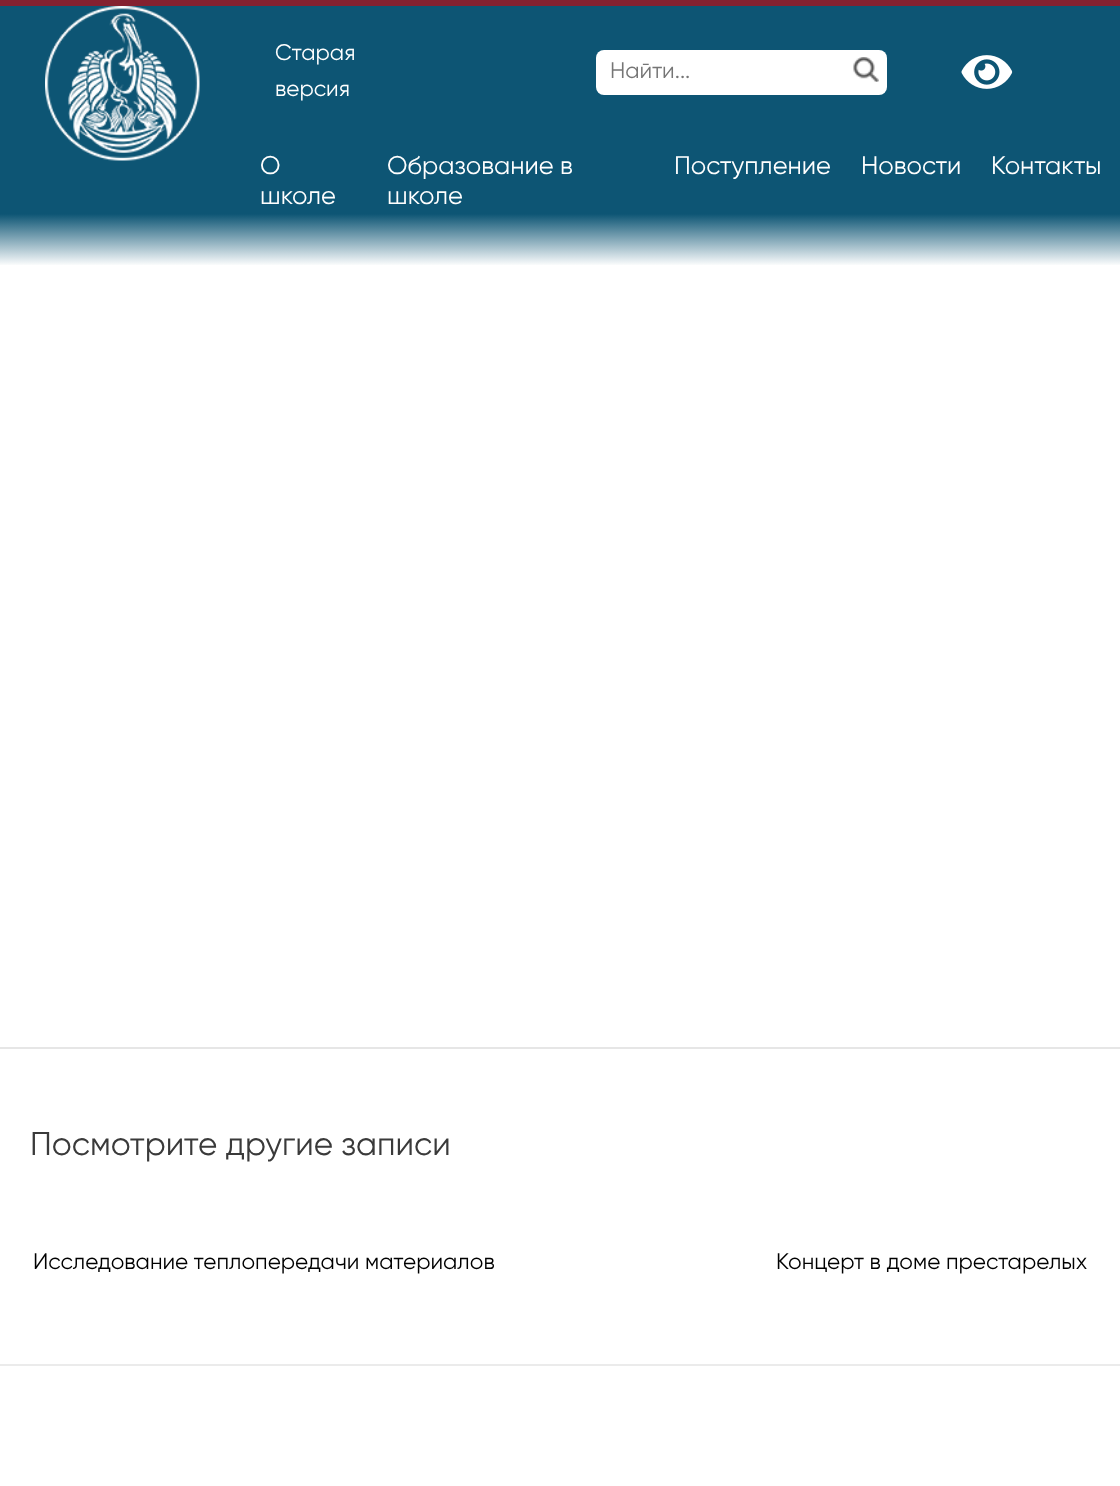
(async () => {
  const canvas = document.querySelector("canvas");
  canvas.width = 1120;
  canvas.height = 1486;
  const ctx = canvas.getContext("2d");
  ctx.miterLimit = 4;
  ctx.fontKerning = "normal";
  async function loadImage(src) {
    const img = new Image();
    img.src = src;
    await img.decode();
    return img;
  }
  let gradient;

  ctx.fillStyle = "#ffffff";
  ctx.fillRect(0, 0, 1120, 1486);
  gradient = ctx.createLinearGradient(560, 6, 560, 266);
  gradient.addColorStop(0, "#0d5574");
  gradient.addColorStop(0.8, "#0d5574");
  gradient.addColorStop(1, "rgba(13, 85, 116, 0)");
  ctx.fillStyle = gradient;
  ctx.fillRect(0, 6, 1120, 259);
  ctx.fillStyle = "#842130";
  ctx.fillRect(0, 0, 1120, 6);
  ctx.drawImage(await loadImage("img/1.png"), 45, 6, 155, 155);
  ctx.fillStyle = "#ffffff";
  ctx.beginPath();
  ctx.roundRect(596, 50, 291, 45, 8);
  ctx.fill();
  ctx.drawImage(await loadImage("img/2.png"), 853, 57, 26, 25);
  ctx.drawImage(await loadImage("img/3.png"), 961, 55, 52, 34);
  ctx.fillStyle = "#e6e6e6";
  ctx.fillRect(0, 1047, 1120, 2);
  ctx.fillStyle = "#ebebeb";
  ctx.fillRect(0, 1364, 1120, 2);
  ctx.font = "22.5px Gilroy";
  ctx.fillStyle = "#ffffff";
  ctx.fillText("Старая", 275, 60);
  ctx.fillText("версия", 275, 96);
  ctx.fillStyle = "#757575";
  ctx.fillText("Найти...", 610, 78);
  ctx.font = "25.5px Gilroy";
  ctx.fillStyle = "#ffffff";
  for (const [text, x, y] of [
    ["О", 260, 174],
    ["школе", 260, 204],
    ["Образование в", 387, 174],
    ["школе", 387, 204],
    ["Поступление", 674, 174],
    ["Новости", 861, 174],
    ["Контакты", 991, 174],
  ]) {
    ctx.fillText(text, x, y);
  }
  ctx.font = "33px Gilroy";
  ctx.fillStyle = "#3a3a3a";
  ctx.fillText("Посмотрите другие записи", 30, 1155);
  ctx.font = "22.5px Gilroy";
  ctx.fillStyle = "#000000";
  ctx.fillText("Исследование теплопередачи материалов", 33, 1269);
  ctx.fillText("Концерт в доме престарелых", 776, 1269);
})();
